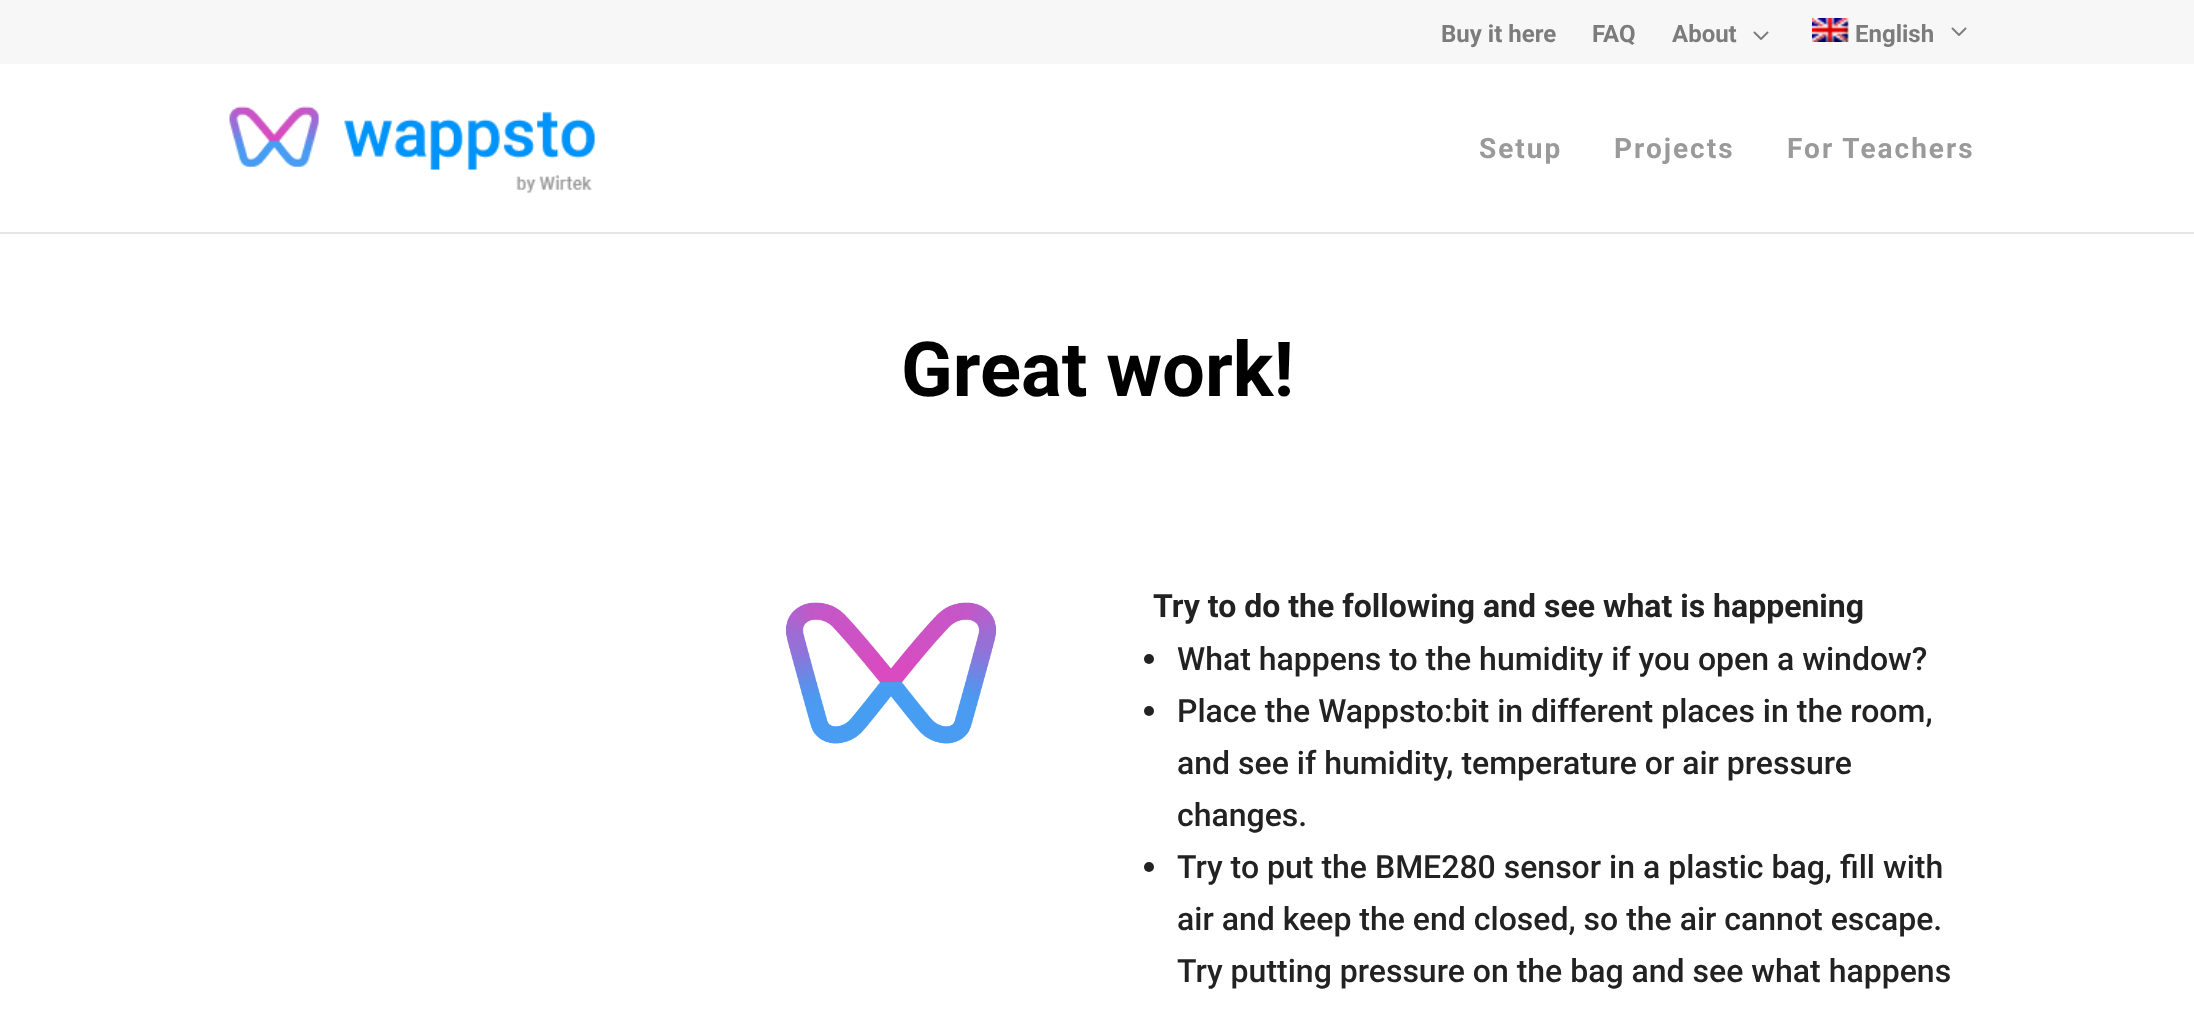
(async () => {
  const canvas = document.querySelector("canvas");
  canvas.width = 2194;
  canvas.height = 1026;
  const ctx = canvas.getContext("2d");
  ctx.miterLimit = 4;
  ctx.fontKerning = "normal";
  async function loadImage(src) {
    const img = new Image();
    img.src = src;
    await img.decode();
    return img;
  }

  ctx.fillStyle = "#ffffff";
  ctx.fillRect(0, 0, 2194, 1026);
  ctx.fillStyle = "#f7f7f7";
  ctx.fillRect(0, 0, 2194, 64);
  ctx.drawImage(await loadImage("img/1.png"), 1753, 31, 16, 9);
  ctx.drawImage(await loadImage("img/2.png"), 1812, 18, 37, 24);
  ctx.drawImage(await loadImage("img/1.png"), 1951, 27, 16, 9);
  ctx.fillStyle = "#e6e6e6";
  ctx.fillRect(0, 232, 2194, 2);
  ctx.drawImage(await loadImage("img/3.png"), 229, 106, 366, 87);
  ctx.drawImage(await loadImage("img/4.png"), 786, 602, 211, 142);
  ctx.fillStyle = "#222222";
  ctx.beginPath();
  ctx.arc(1149, 659, 5, 0, Math.PI * 2);
  ctx.fill();
  ctx.beginPath();
  ctx.arc(1149, 711, 5, 0, Math.PI * 2);
  ctx.fill();
  ctx.beginPath();
  ctx.arc(1149, 867, 5, 0, Math.PI * 2);
  ctx.fill();
  ctx.font = "bold 24px Roboto";
  ctx.fillStyle = "#7c7c7c";
  for (const [text, x, y] of [
    ["Buy it here", 1441, 42],
    ["FAQ", 1592, 42],
    ["About", 1672, 42],
    ["English", 1855, 42],
  ]) {
    ctx.fillText(text, x, y);
  }
  ctx.letterSpacing = "2px";
  ctx.font = "bold 28px Roboto";
  ctx.fillStyle = "#9a9a9a";
  for (const [text, x, y] of [
    ["Setup", 1479, 158],
    ["Projects", 1614, 158],
    ["For Teachers", 1787, 158],
  ]) {
    ctx.fillText(text, x, y);
  }
  ctx.letterSpacing = "0px";
  ctx.font = "bold 76px Roboto";
  ctx.fillStyle = "#000000";
  ctx.fillText("Great work!", 901, 396);
  ctx.font = "bold 32px Roboto";
  ctx.fillStyle = "#222222";
  ctx.fillText("Try to do the following and see what is happening", 1153, 617);
  ctx.font = "500 32px Roboto";
  for (const [text, x, y] of [
    ["What happens to the humidity if you open a window?", 1177, 670],
    ["Place the Wappsto:bit in different places in the room,", 1177, 722],
    ["and see if humidity, temperature or air pressure", 1177, 774],
    ["changes.", 1177, 826],
    ["Try to put the BME280 sensor in a plastic bag, fill with", 1177, 878],
    ["air and keep the end closed, so the air cannot escape.", 1177, 930],
    ["Try putting pressure on the bag and see what happens", 1177, 982],
  ]) {
    ctx.fillText(text, x, y);
  }
})();
